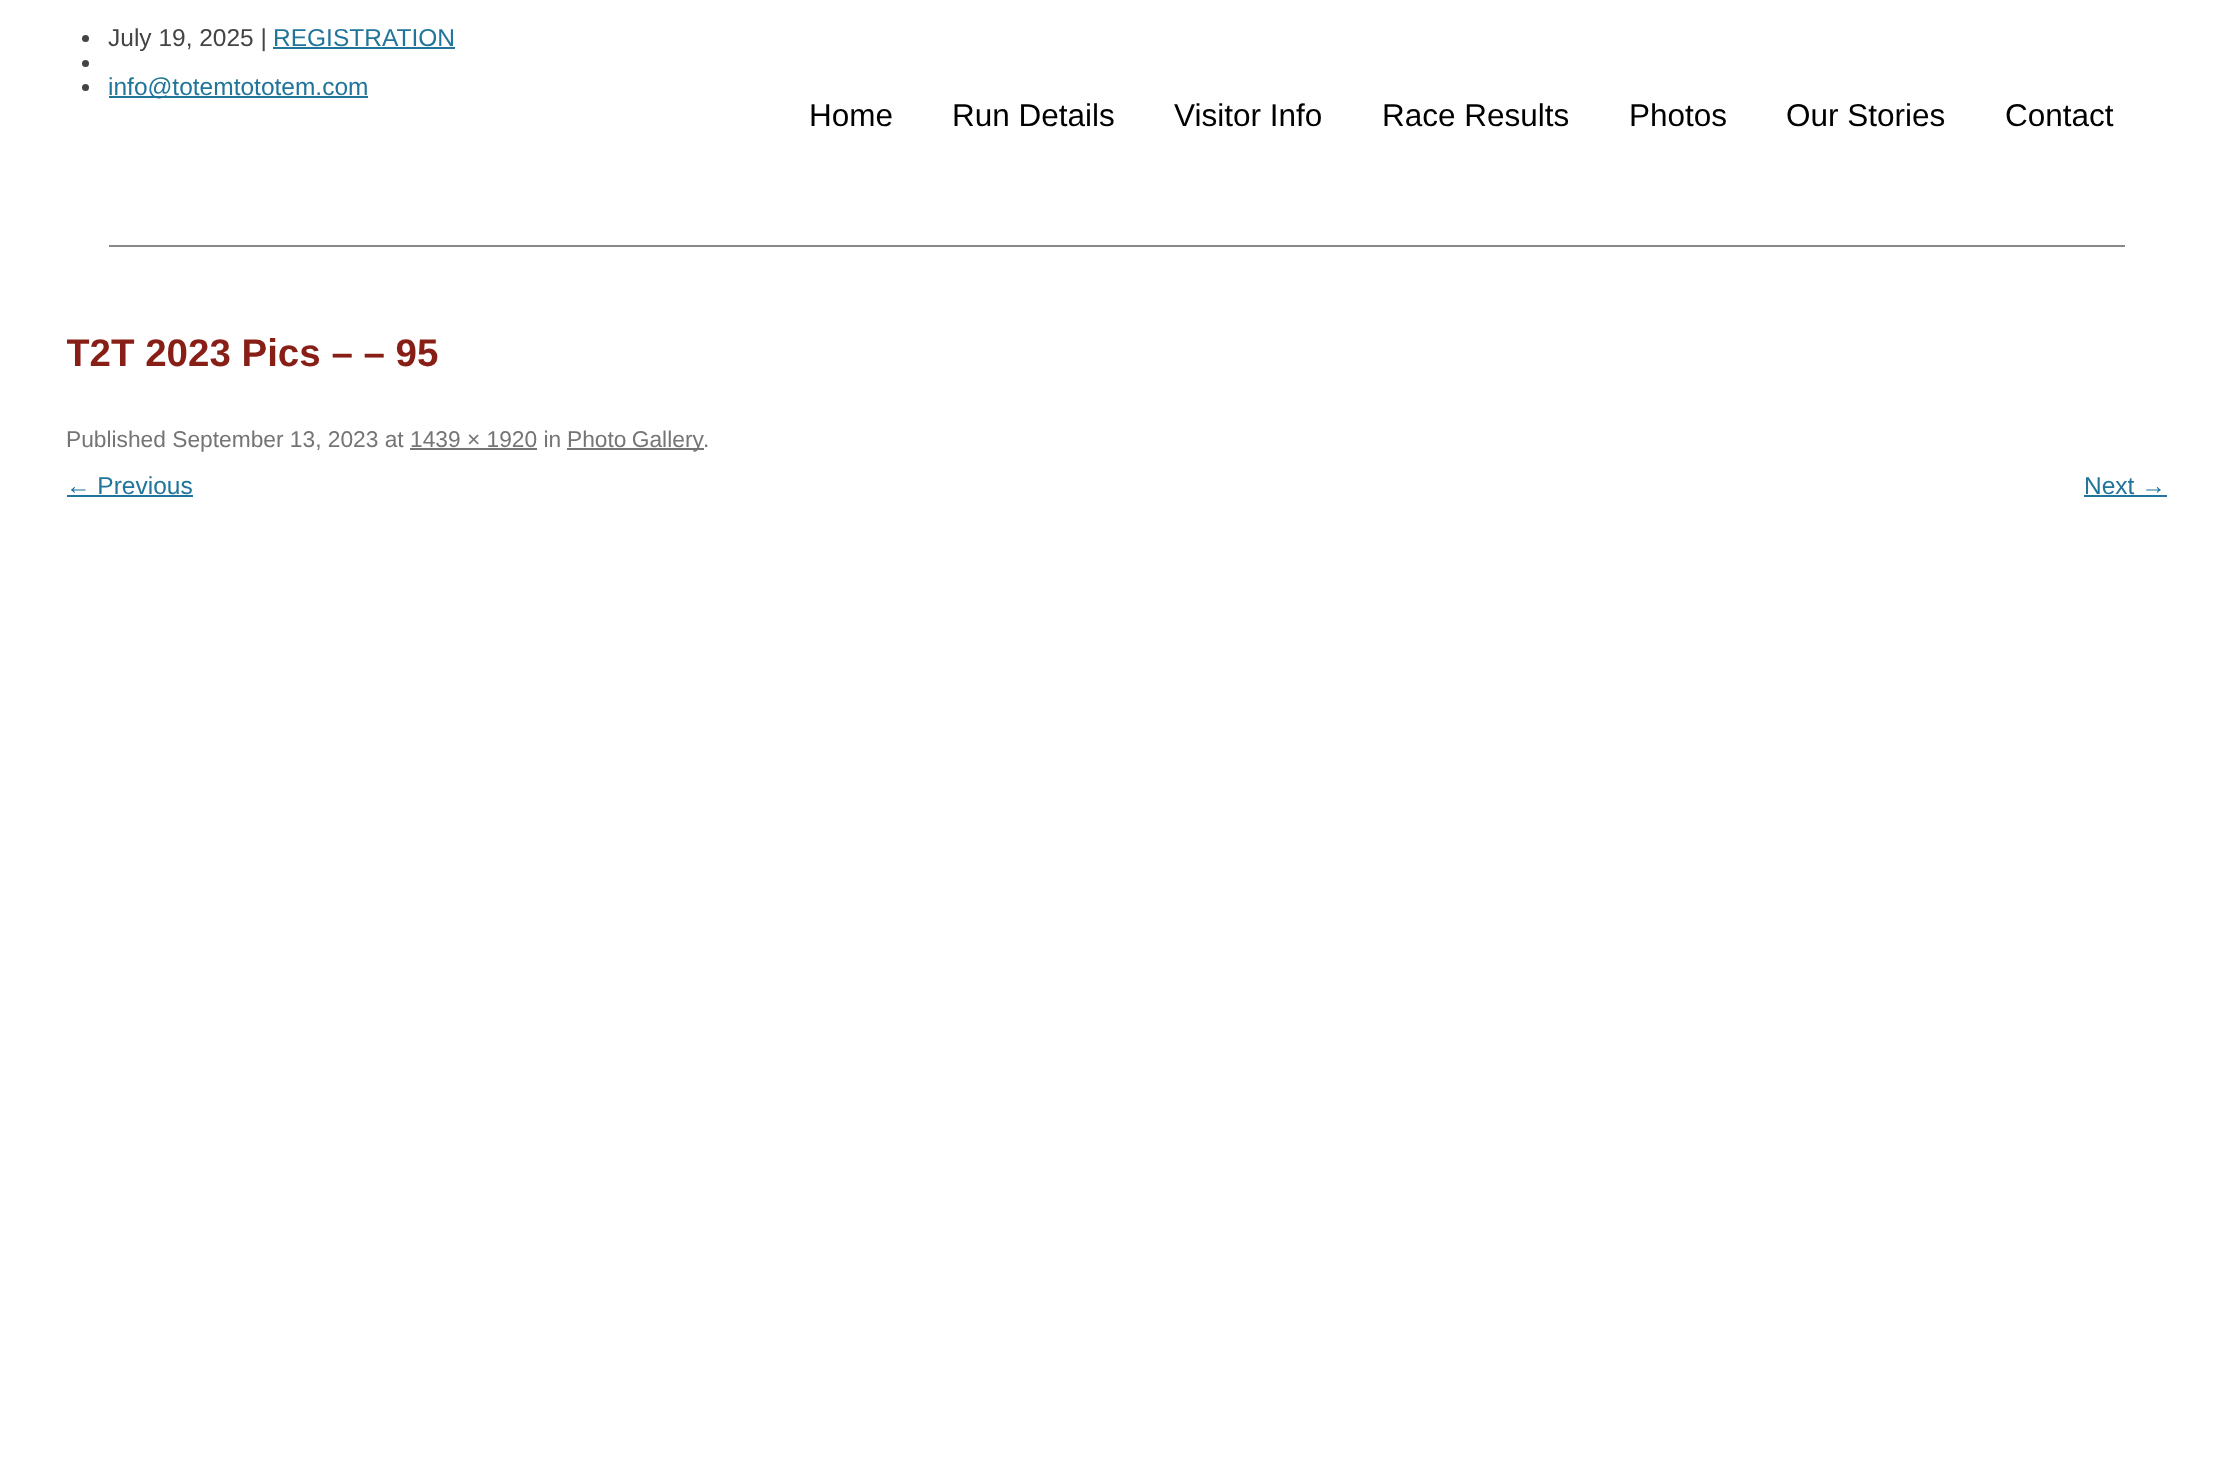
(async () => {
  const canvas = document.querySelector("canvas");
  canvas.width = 2231;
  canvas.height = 1479;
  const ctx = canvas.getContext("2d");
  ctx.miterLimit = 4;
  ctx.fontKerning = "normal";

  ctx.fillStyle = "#ffffff";
  ctx.fillRect(0, 0, 2231, 1479);
  ctx.fillStyle = "#444444";
  ctx.beginPath();
  ctx.arc(85.5, 38.5, 3.5, 0, Math.PI * 2);
  ctx.fill();
  ctx.fillStyle = "#21759b";
  ctx.fillRect(273, 47, 182, 2);
  ctx.fillStyle = "#444444";
  ctx.beginPath();
  ctx.arc(85.5, 63.5, 3.5, 0, Math.PI * 2);
  ctx.fill();
  ctx.beginPath();
  ctx.arc(85.5, 87.5, 3.5, 0, Math.PI * 2);
  ctx.fill();
  for (const [x, y, w, h, color] of [
    [109, 96, 259, 2, "#21759b"],
    [109, 245, 2016, 2, "#888888"],
    [567, 448, 137, 2, "#757575"],
    [410, 448, 127, 2, "#757575"],
    [67, 495, 126, 2, "#21759b"],
    [2084, 495, 83, 2, "#21759b"],
  ]) {
    ctx.fillStyle = color;
    ctx.fillRect(x, y, w, h);
  }
  ctx.font = "24.5px Liberation Sans";
  ctx.fillStyle = "#444444";
  ctx.fillText("July 19, 2025 |", 108, 46);
  ctx.fillStyle = "#21759b";
  ctx.fillText("REGISTRATION", 273, 46);
  ctx.fillText("info@totemtototem.com", 108, 95);
  ctx.font = "31.5px Liberation Sans";
  ctx.fillStyle = "#000000";
  for (const [text, x, y] of [
    ["Home", 809, 126],
    ["Run Details", 952, 126],
    ["Visitor Info", 1174, 126],
    ["Race Results", 1382, 126],
    ["Photos", 1629, 126],
    ["Our Stories", 1786, 126],
    ["Contact", 2005, 126],
  ]) {
    ctx.fillText(text, x, y);
  }
  ctx.save();
  ctx.beginPath();
  ctx.rect(67, 0, 2100, 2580);
  ctx.clip();
  ctx.font = "bold 38.5px Liberation Sans";
  ctx.fillStyle = "#881f17";
  ctx.fillText("T2T 2023 Pics – – 95", 66, 366);
  ctx.restore();
  ctx.font = "22.75px Liberation Sans";
  ctx.fillStyle = "#757575";
  ctx.fillText("Published September 13, 2023 at 1439 × 1920 in", 66, 447);
  ctx.wordSpacing = "-1px";
  ctx.fillText("Photo Gallery", 567, 447);
  ctx.wordSpacing = "0px";
  ctx.fillText(".", 703, 447);
  ctx.font = "24.5px Liberation Sans";
  ctx.fillStyle = "#21759b";
  ctx.fillText("← Previous", 66, 494);
  ctx.fillText("Next →", 2084, 494);
})();
